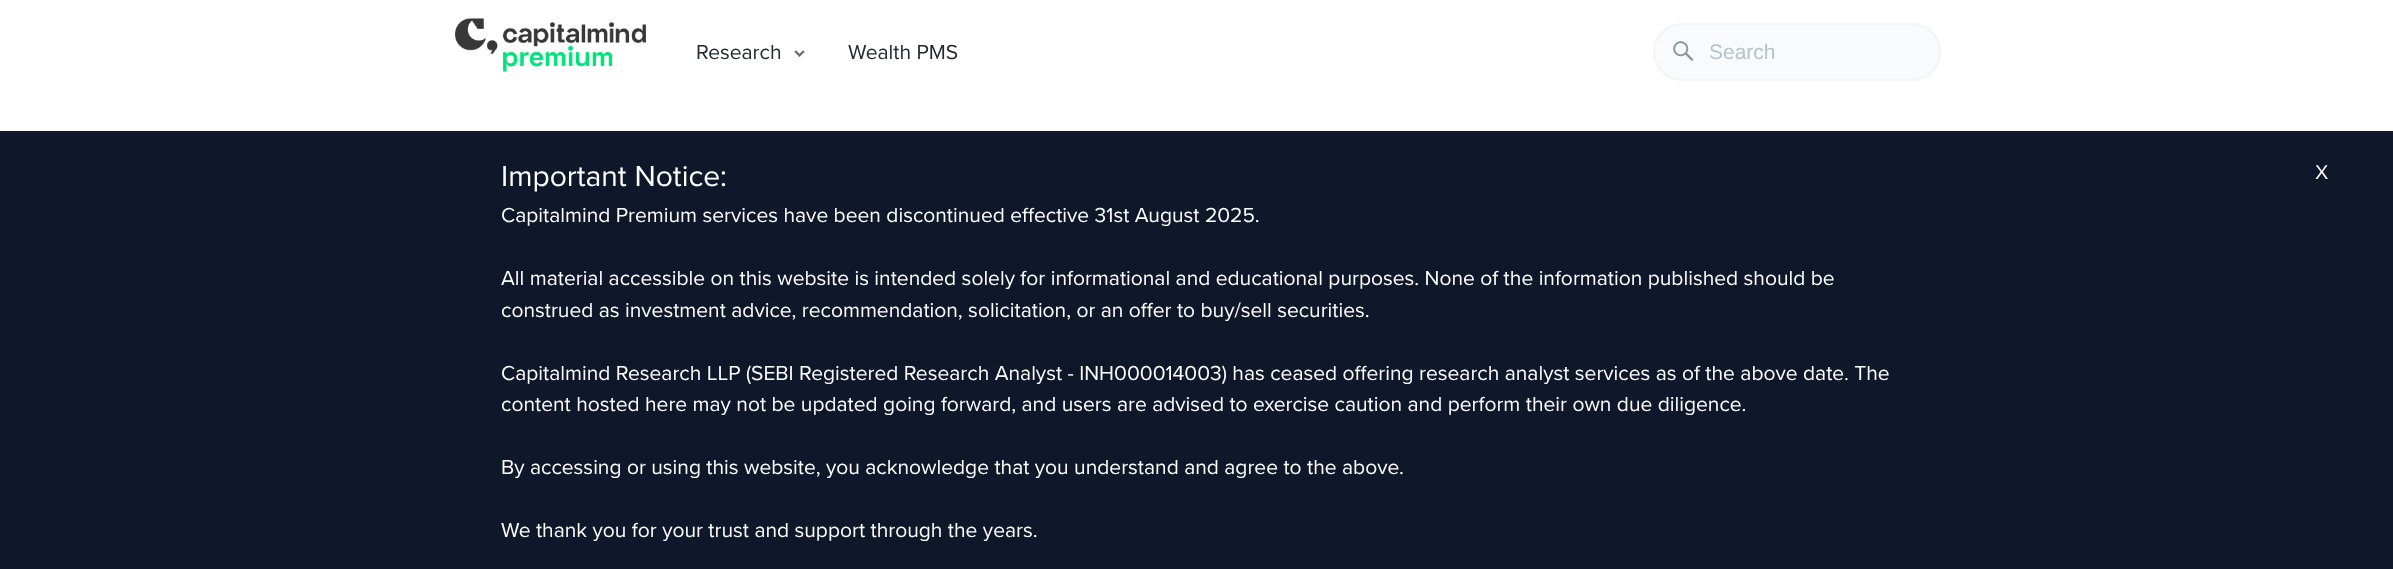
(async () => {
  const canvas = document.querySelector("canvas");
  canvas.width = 2393;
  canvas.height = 569;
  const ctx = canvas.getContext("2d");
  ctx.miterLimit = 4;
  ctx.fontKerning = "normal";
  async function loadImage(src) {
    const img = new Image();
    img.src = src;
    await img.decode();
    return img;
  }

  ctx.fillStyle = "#ffffff";
  ctx.fillRect(0, 0, 2393, 569);
  ctx.drawImage(await loadImage("img/1.png"), 455, 18, 191, 54);
  ctx.drawImage(await loadImage("img/2.png"), 794, 50, 11, 7);
  ctx.fillStyle = "#f8fafc";
  ctx.beginPath();
  ctx.roundRect(1654, 24, 286, 56, 28);
  ctx.fill();
  ctx.strokeStyle = "#f1f5f8";
  ctx.lineWidth = 2;
  ctx.stroke();
  ctx.drawImage(await loadImage("img/3.png"), 1673, 41, 21, 20);
  ctx.fillStyle = "#0f172a";
  ctx.fillRect(0, 131, 2393, 438);
  ctx.font = "21px Proxima Nova";
  ctx.fillStyle = "#22292f";
  ctx.fillText("Research", 696, 59);
  ctx.fillText("Wealth PMS", 848, 59);
  ctx.font = "21px Liberation Sans";
  ctx.fillStyle = "#b8c2cc";
  ctx.fillText("Search", 1709, 59);
  ctx.font = "30px Proxima Nova";
  ctx.fillStyle = "#ffffff";
  ctx.fillText("Important Notice:", 501, 186);
  ctx.font = "21px Proxima Nova";
  for (const [text, x, y] of [
    ["Capitalmind Premium services have been discontinued effective 31st August 2025.", 501, 222],
    ["All material accessible on this website is intended solely for informational and educational purposes. None of the information published should be", 501, 285],
    ["construed as investment advice, recommendation, solicitation, or an offer to buy/sell securities.", 501, 317],
    ["Capitalmind Research LLP (SEBI Registered Research Analyst - INH000014003) has ceased offering research analyst services as of the above date. The", 501, 380],
    ["content hosted here may not be updated going forward, and users are advised to exercise caution and perform their own due diligence.", 501, 411],
    ["By accessing or using this website, you acknowledge that you understand and agree to the above.", 501, 474],
    ["We thank you for your trust and support through the years.", 501, 537],
  ]) {
    ctx.fillText(text, x, y);
  }
  ctx.font = "20px Liberation Sans";
  ctx.fillText("X", 2315, 179);
})();
